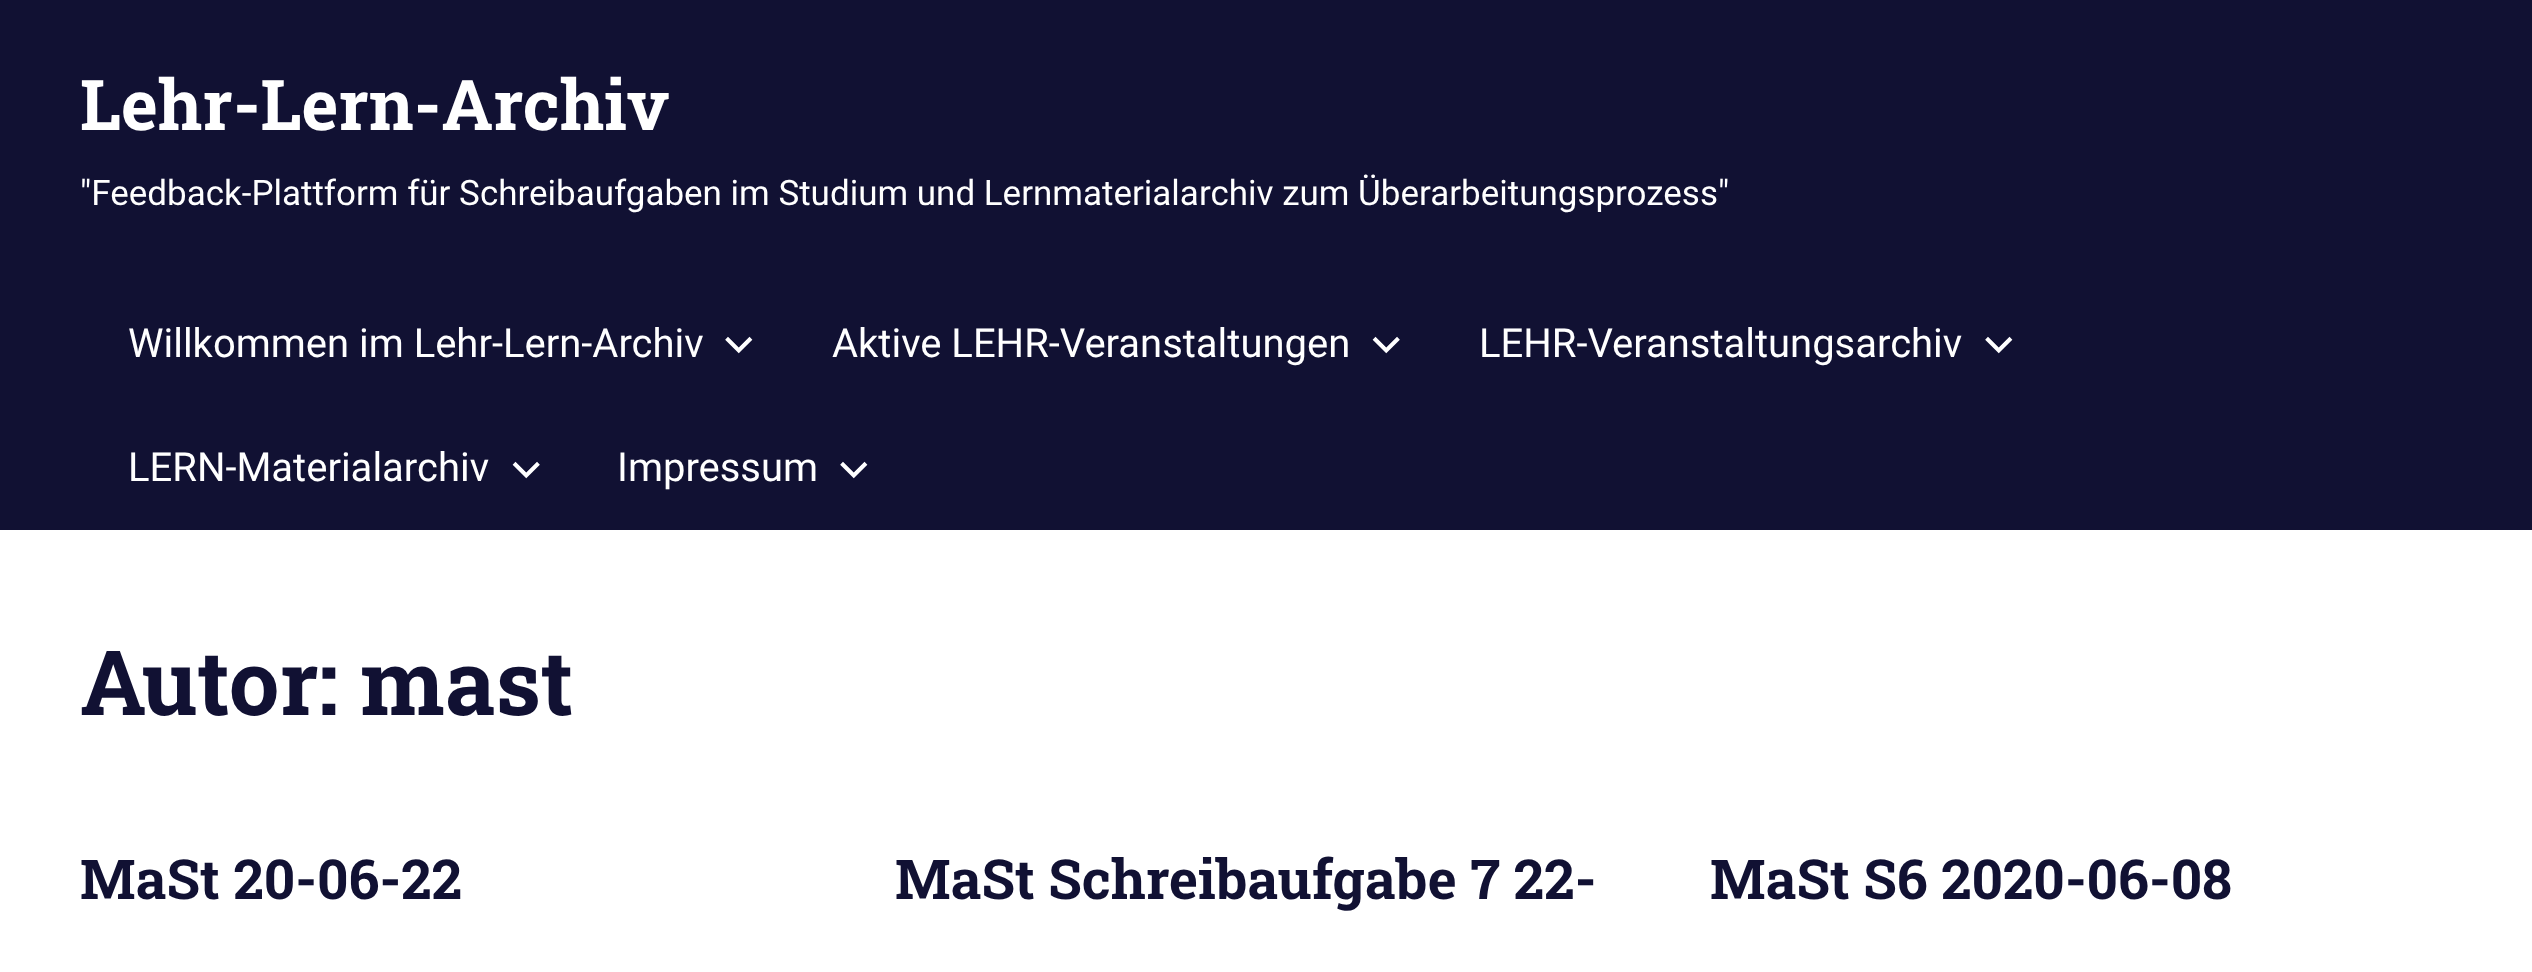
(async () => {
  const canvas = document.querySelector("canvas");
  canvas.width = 2532;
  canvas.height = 972;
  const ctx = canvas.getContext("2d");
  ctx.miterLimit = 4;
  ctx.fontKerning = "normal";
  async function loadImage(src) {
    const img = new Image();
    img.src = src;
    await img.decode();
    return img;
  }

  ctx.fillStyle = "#111133";
  ctx.fillRect(0, 0, 2532, 972);
  ctx.drawImage(await loadImage("img/1.png"), 725, 336, 28, 18);
  ctx.drawImage(await loadImage("img/2.png"), 1372, 336, 28, 18);
  ctx.drawImage(await loadImage("img/1.png"), 1985, 336, 28, 18);
  ctx.drawImage(await loadImage("img/2.png"), 512, 461, 28, 18);
  ctx.drawImage(await loadImage("img/1.png"), 840, 461, 28, 18);
  ctx.fillStyle = "#ffffff";
  ctx.fillRect(0, 530, 2532, 442);
  ctx.font = "bold 70px Roboto Slab";
  ctx.fillText("Lehr-Lern-Archiv", 80, 130);
  ctx.font = "35px Roboto";
  ctx.fillText("\"Feedback-Plattform für Schreibaufgaben im Studium und Lernmaterialarchiv zum Überarbeitungsprozess\"", 80, 205);
  ctx.font = "40px Roboto";
  for (const [text, x, y] of [
    ["Willkommen im Lehr-Lern-Archiv", 128, 357],
    ["Aktive LEHR-Veranstaltungen", 832, 357],
    ["LEHR-Veranstaltungsarchiv", 1479, 357],
    ["LERN-Materialarchiv", 128, 481],
    ["Impressum", 617, 481],
  ]) {
    ctx.fillText(text, x, y);
  }
  ctx.font = "bold 90px Roboto Slab";
  ctx.fillStyle = "#111133";
  ctx.fillText("Autor: mast", 80, 715);
  ctx.font = "bold 55px Roboto Slab";
  for (const [text, x, y] of [
    ["MaSt 20-06-22", 80, 899],
    ["MaSt Schreibaufgabe 7 22-", 895, 899],
    ["MaSt S6 2020-06-08", 1710, 899],
  ]) {
    ctx.fillText(text, x, y);
  }
})();
